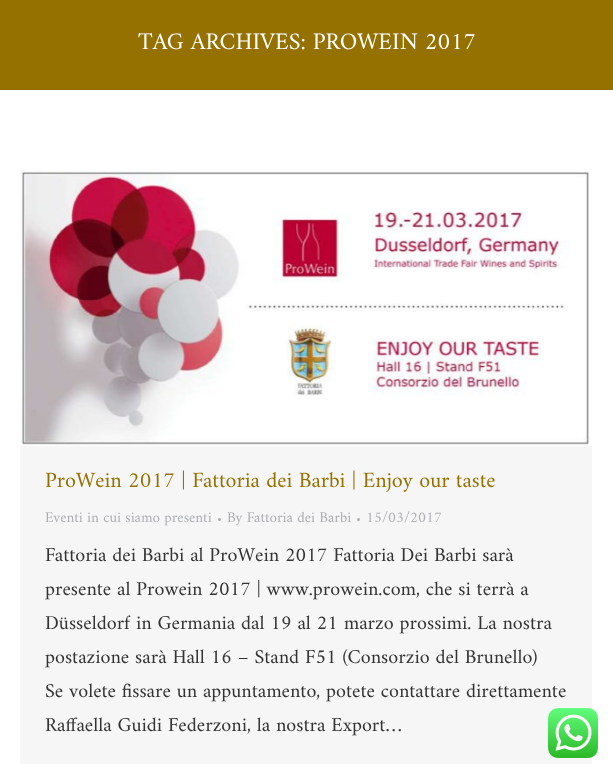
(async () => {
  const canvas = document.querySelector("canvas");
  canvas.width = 613;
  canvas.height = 773;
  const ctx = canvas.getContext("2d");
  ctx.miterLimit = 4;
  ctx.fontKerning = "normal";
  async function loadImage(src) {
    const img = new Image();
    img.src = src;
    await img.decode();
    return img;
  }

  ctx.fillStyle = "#ffffff";
  ctx.fillRect(0, 0, 613, 773);
  for (const [x, y, w, h, color] of [
    [0, 0, 613, 89, "#957100"],
    [0, 89, 613, 1, "#8e6d03"],
    [20, 170, 572, 594, "#f6f6f6"],
  ]) {
    ctx.fillStyle = color;
    ctx.fillRect(x, y, w, h);
  }
  ctx.drawImage(await loadImage("img/1.png"), 20, 170, 572, 276);
  ctx.fillStyle = "#adafb3";
  ctx.beginPath();
  ctx.arc(219.5, 519.5, 1.5, 0, Math.PI * 2);
  ctx.fill();
  ctx.beginPath();
  ctx.arc(358.5, 519.5, 1.5, 0, Math.PI * 2);
  ctx.fill();
  ctx.drawImage(await loadImage("img/2.png"), 548, 708, 50, 50);
  ctx.font = "24px Amiri";
  ctx.fillStyle = "#ffffff";
  ctx.fillText("TAG ARCHIVES: PROWEIN 2017", 138, 49);
  ctx.font = "22px Amiri";
  ctx.fillStyle = "#957100";
  ctx.fillText("ProWein 2017 | Fattoria dei Barbi | Enjoy our taste", 45, 487);
  ctx.font = "15px Amiri";
  ctx.fillStyle = "#adafb3";
  for (const [text, x, y] of [
    ["Eventi in cui siamo presenti", 45, 522],
    ["By Fattoria dei Barbi", 227, 522],
    ["15/03/2017", 366, 522],
  ]) {
    ctx.fillText(text, x, y);
  }
  ctx.font = "20px Amiri";
  ctx.fillStyle = "#333333";
  for (const [text, x, y] of [
    ["Fattoria dei Barbi al ProWein 2017 Fattoria Dei Barbi sarà", 45, 561],
    ["presente al Prowein 2017 | www.prowein.com, che si terrà a", 45, 595],
    ["Düsseldorf in Germania dal 19 al 21 marzo prossimi. La nostra", 45, 629],
    ["postazione sarà Hall 16 – Stand F51 (Consorzio del Brunello)", 45, 663],
    ["Se volete fissare un appuntamento, potete contattare direttamente", 45, 697],
    ["Raffaella Guidi Federzoni, la nostra Export…", 45, 731],
  ]) {
    ctx.fillText(text, x, y);
  }
})();
